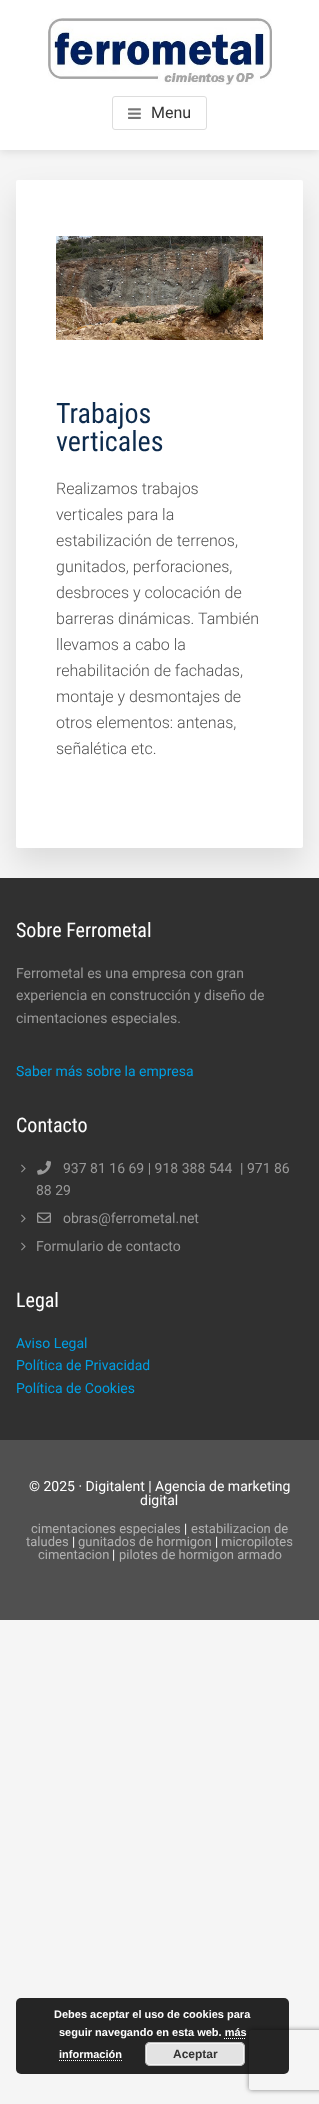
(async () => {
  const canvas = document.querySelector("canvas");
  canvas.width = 319;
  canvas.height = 2104;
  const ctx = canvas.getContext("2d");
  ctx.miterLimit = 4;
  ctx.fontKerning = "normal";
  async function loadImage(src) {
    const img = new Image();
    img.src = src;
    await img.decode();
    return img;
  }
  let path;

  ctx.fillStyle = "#f5f5f5";
  ctx.fillRect(0, 0, 319, 2104);
  ctx.fillStyle = "rgba(0, 0, 0, 0.1)";
  ctx.filter = "blur(4px)";
  ctx.beginPath();
  ctx.rect(0, 2, 319, 150);
  ctx.fill();
  ctx.filter = "none";
  ctx.fillStyle = "#ffffff";
  ctx.fillRect(0, 0, 319, 150);
  ctx.drawImage(await loadImage("img/1.png"), 48, 18, 224, 67);
  ctx.beginPath();
  ctx.roundRect(112.5, 96.5, 94, 33, 2.5);
  ctx.strokeStyle = "#dddddd";
  ctx.stroke();
  ctx.drawImage(await loadImage("img/2.png"), 128, 108, 13, 11);
  ctx.fillStyle = "rgba(0, 0, 0, 0.1)";
  ctx.filter = "blur(15px)";
  ctx.beginPath();
  ctx.roundRect(16, 195, 287, 668, 2);
  ctx.fill();
  ctx.filter = "none";
  ctx.fillStyle = "#ffffff";
  ctx.beginPath();
  ctx.roundRect(16, 180, 287, 668, 2);
  ctx.fill();
  ctx.drawImage(await loadImage("img/3.png"), 56, 236, 207, 104);
  ctx.fillStyle = "#303030";
  ctx.fillRect(0, 878, 319, 562);
  ctx.drawImage(await loadImage("img/4.png"), 21, 1164, 5, 9);
  ctx.drawImage(await loadImage("img/5.png"), 37, 1160, 14, 15);
  ctx.drawImage(await loadImage("img/4.png"), 21, 1214, 5, 9);
  ctx.drawImage(await loadImage("img/6.png"), 37, 1212, 14, 11);
  ctx.drawImage(await loadImage("img/4.png"), 21, 1242, 5, 9);
  ctx.fillStyle = "#505050";
  ctx.fillRect(0, 1440, 319, 180);
  ctx.save();
  path = new Path2D("M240 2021H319V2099H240ZM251 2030H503C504 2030 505 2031 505 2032V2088C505 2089 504 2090 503 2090H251C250 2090 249 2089 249 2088V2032C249 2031 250 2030 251 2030Z");
  ctx.clip(path, "evenodd");
  ctx.fillStyle = "#808080";
  ctx.filter = "blur(2.5px)";
  ctx.beginPath();
  ctx.roundRect(249, 2030, 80, 60, 2);
  ctx.fill();
  ctx.filter = "none";
  ctx.restore();
  ctx.fillStyle = "rgba(0, 0, 0, 0.85)";
  ctx.beginPath();
  ctx.roundRect(16, 1998, 273, 76, 5);
  ctx.fill();
  path = new Path2D("M224 2038.5H246");
  ctx.strokeStyle = "#ffffff";
  ctx.setLineDash([1, 1]);
  ctx.stroke(path);
  path = new Path2D("M59 2060.5H122");
  ctx.stroke(path);
  ctx.fillStyle = "#e3e3e3";
  ctx.beginPath();
  ctx.roundRect(145, 2042, 100, 24, 5);
  ctx.fill();
  ctx.beginPath();
  ctx.roundRect(146.5, 2043.5, 97, 21, 3.5);
  ctx.strokeStyle = "#f6f6f6";
  ctx.setLineDash([]);
  ctx.stroke();
  ctx.beginPath();
  ctx.roundRect(145.5, 2042.5, 99, 23, 4.5);
  ctx.strokeStyle = "#bbbbbb";
  ctx.stroke();
  ctx.font = "16px Roboto";
  ctx.fillStyle = "#333333";
  ctx.fillText("Menu", 151, 118);
  ctx.font = "28px Roboto Condensed";
  ctx.fillStyle = "#0d2b4d";
  ctx.fillText("Trabajos", 56, 423);
  ctx.fillText("verticales", 56, 451);
  ctx.font = "300 16px Roboto";
  ctx.fillStyle = "#505050";
  for (const [text, x, y] of [
    ["Realizamos trabajos", 56, 494],
    ["verticales para la", 56, 520],
    ["estabilización de terrenos,", 56, 546],
    ["gunitados, perforaciones,", 56, 572],
    ["desbroces y colocación de", 56, 598],
    ["barreras dinámicas. También", 56, 624],
    ["llevamos a cabo la", 56, 650],
    ["rehabilitación de fachadas,", 56, 676],
    ["montaje y desmontajes de", 56, 702],
    ["otros elementos: antenas,", 56, 728],
    ["señalética etc.", 56, 754],
  ]) {
    ctx.fillText(text, x, y);
  }
  ctx.font = "20px Roboto Condensed";
  ctx.fillStyle = "#ffffff";
  ctx.fillText("Sobre Ferrometal", 16, 937);
  ctx.font = "14px Roboto";
  ctx.fillStyle = "#999999";
  for (const [text, x, y] of [
    ["Ferrometal es una empresa con gran", 16, 978],
    ["experiencia en construcción y diseño de", 16, 1000],
    ["cimentaciones especiales.", 16, 1023],
  ]) {
    ctx.fillText(text, x, y);
  }
  ctx.fillStyle = "#009fe3";
  ctx.fillText("Saber más sobre la empresa", 16, 1076);
  ctx.font = "20px Roboto Condensed";
  ctx.fillStyle = "#ffffff";
  ctx.fillText("Contacto", 16, 1132);
  ctx.font = "14px Roboto";
  ctx.fillStyle = "#999999";
  for (const [text, x, y] of [
    ["937 81 16 69 | 918 388 544", 63, 1173],
    ["| 971 86", 240, 1173],
    ["88 29", 36, 1195],
    ["obras@ferrometal.net", 63, 1223],
    ["Formulario de contacto", 36, 1251],
  ]) {
    ctx.fillText(text, x, y);
  }
  ctx.font = "20px Roboto Condensed";
  ctx.fillStyle = "#ffffff";
  ctx.fillText("Legal", 16, 1307);
  ctx.font = "14px Roboto";
  ctx.fillStyle = "#009fe3";
  for (const [text, x, y] of [
    ["Aviso Legal", 16, 1348],
    ["Política de Privacidad", 16, 1370],
    ["Política de Cookies", 16, 1393],
  ]) {
    ctx.fillText(text, x, y);
  }
  ctx.fillStyle = "#ffffff";
  ctx.fillText("© 2025 · Digitalent | Agencia de marketing", 29, 1491);
  ctx.fillText("digital", 140, 1505);
  ctx.font = "13px Roboto";
  ctx.fillStyle = "#b2b2b2";
  ctx.fillText("cimentaciones especiales", 31, 1533);
  ctx.fillStyle = "#ffffff";
  ctx.fillText("|", 184, 1533);
  ctx.fillStyle = "#b2b2b2";
  ctx.fillText("estabilizacion de", 191, 1533);
  ctx.fillText("taludes", 26, 1546);
  ctx.fillStyle = "#ffffff";
  ctx.fillText("|", 72, 1546);
  ctx.fillStyle = "#b2b2b2";
  ctx.fillText("gunitados de hormigon", 78, 1546);
  ctx.fillStyle = "#ffffff";
  ctx.fillText("|", 215, 1546);
  ctx.fillStyle = "#b2b2b2";
  ctx.fillText("micropilotes", 221, 1546);
  ctx.fillText("cimentacion", 38, 1559);
  ctx.fillStyle = "#ffffff";
  ctx.fillText("|", 112, 1559);
  ctx.fillStyle = "#b2b2b2";
  ctx.fillText("pilotes de hormigon armado", 119, 1559);
  ctx.font = "bold 11px Liberation Sans";
  ctx.fillStyle = "#ffffff";
  for (const [text, x, y] of [
    ["Debes aceptar el uso de cookies para", 54, 2018],
    ["seguir navegando en esta web. más", 59, 2036],
    ["información", 59, 2058],
  ]) {
    ctx.fillText(text, x, y);
  }
  ctx.font = "bold 12px Liberation Sans";
  ctx.fillStyle = "#333333";
  ctx.fillText("Aceptar", 173, 2058);
})();
